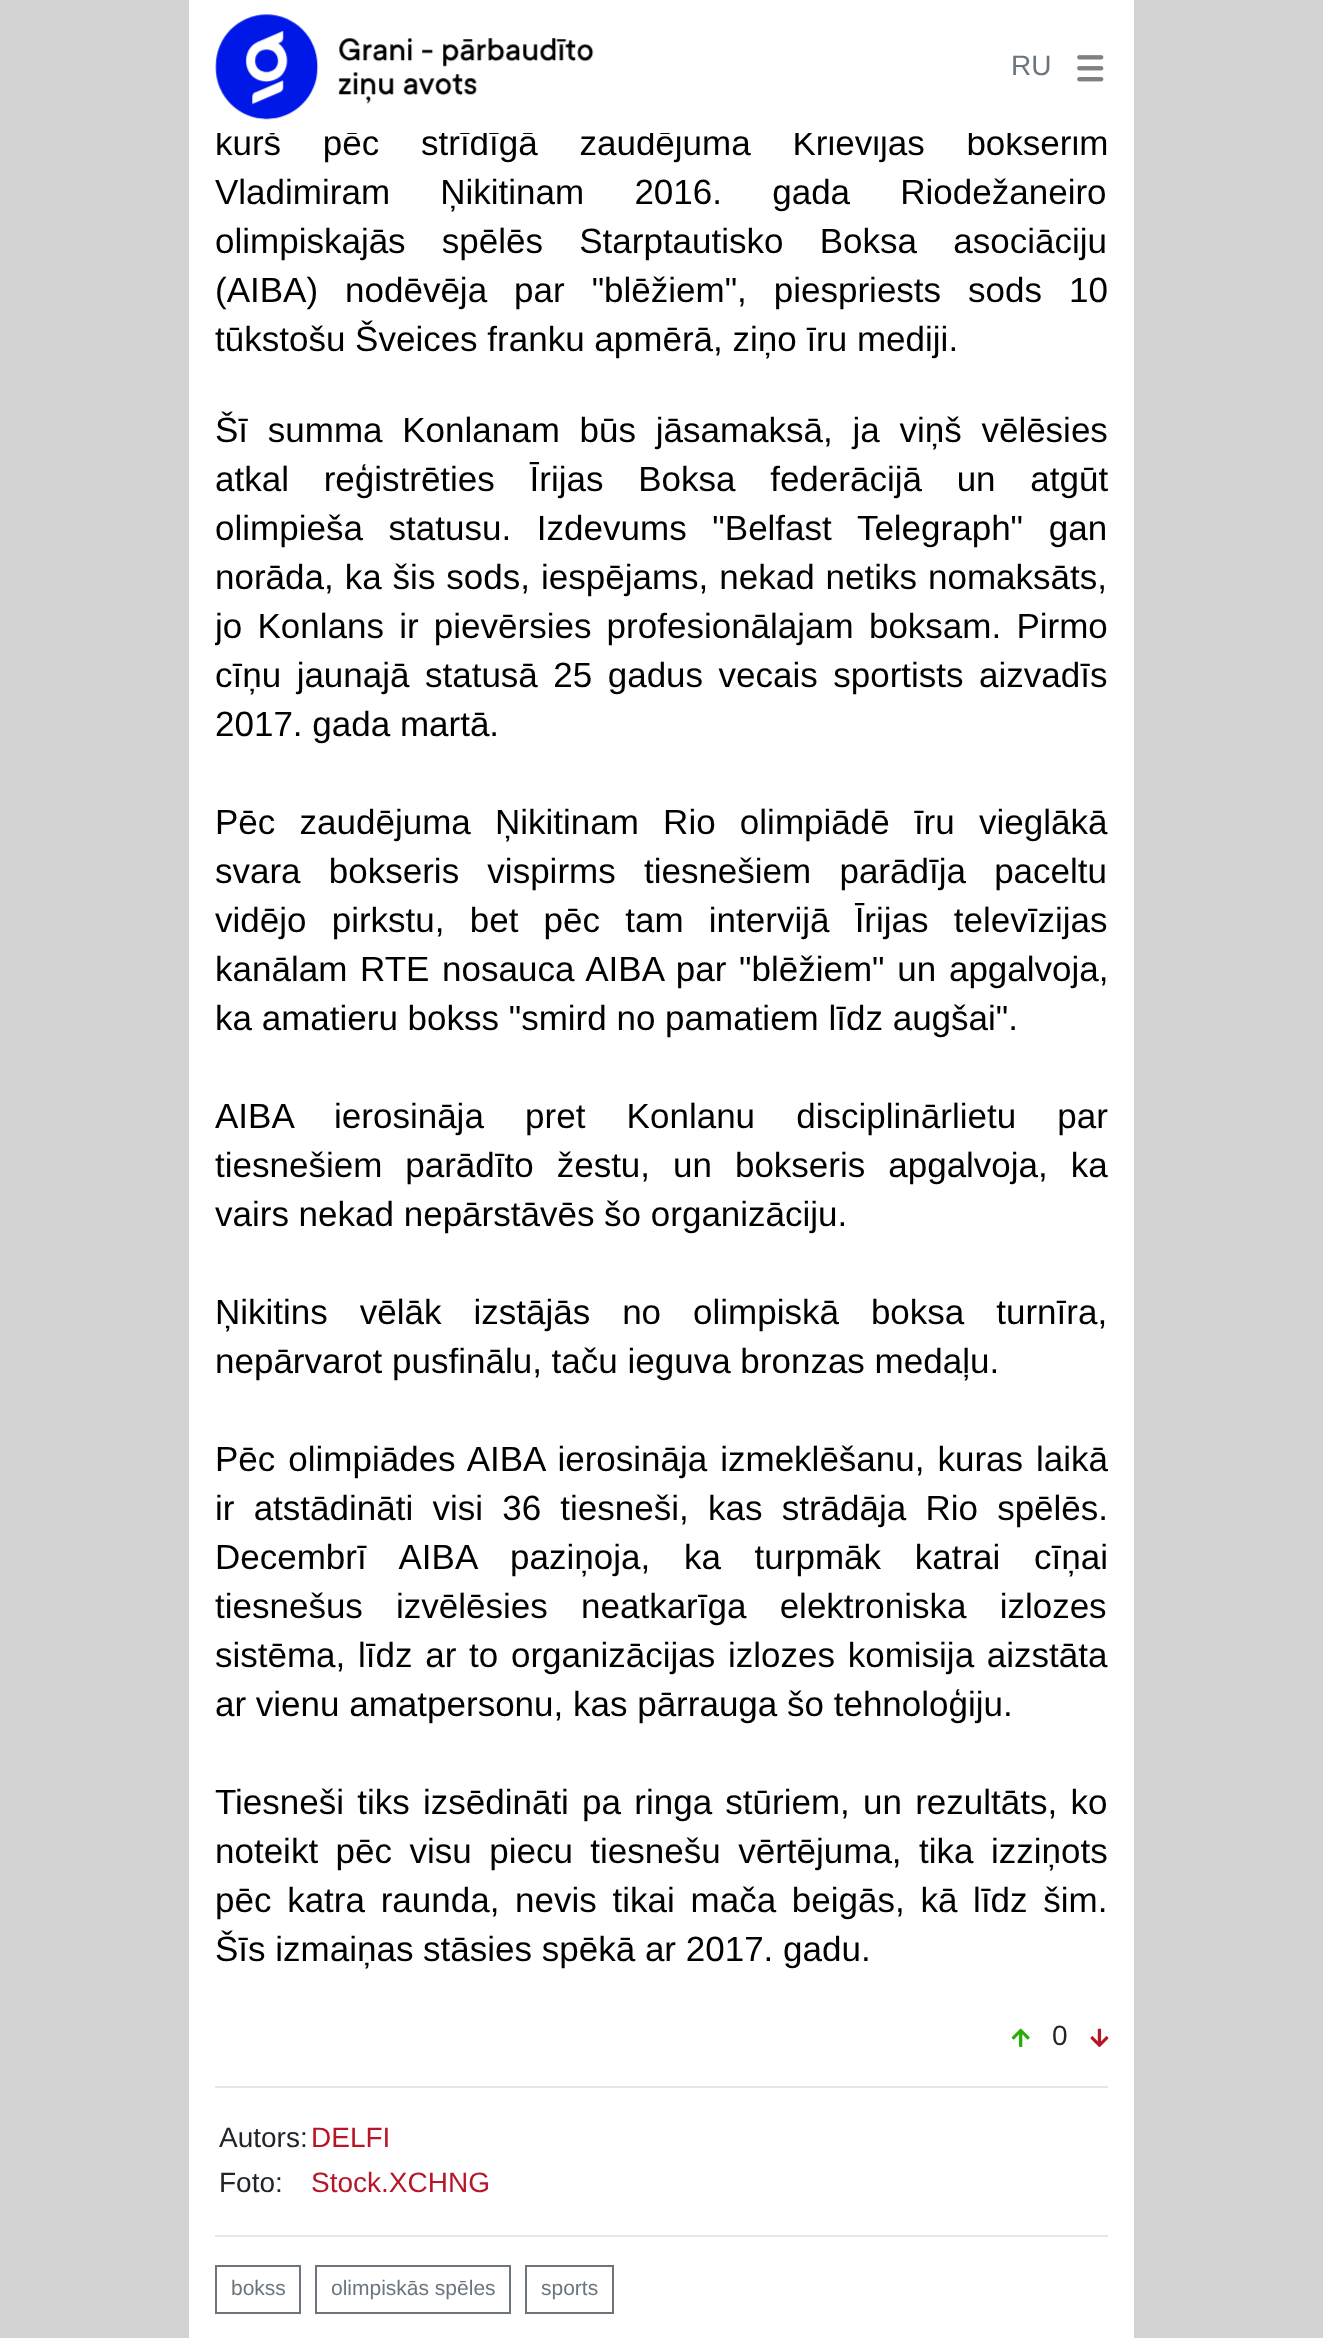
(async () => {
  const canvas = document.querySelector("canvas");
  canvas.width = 1323;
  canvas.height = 2338;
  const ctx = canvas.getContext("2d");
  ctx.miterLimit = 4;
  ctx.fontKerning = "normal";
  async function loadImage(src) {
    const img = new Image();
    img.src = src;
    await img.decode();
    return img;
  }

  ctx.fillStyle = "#d3d3d3";
  ctx.fillRect(0, 0, 1323, 2338);
  ctx.fillStyle = "#ffffff";
  ctx.fillRect(189, 133, 945, 2205);
  ctx.drawImage(await loadImage("img/3.png"), 1011, 2028, 19, 20);
  ctx.drawImage(await loadImage("img/4.png"), 1090, 2028, 19, 19);
  ctx.fillStyle = "#e6e6e6";
  ctx.fillRect(215, 2086, 893, 2);
  ctx.fillRect(215, 2235, 893, 2);
  ctx.strokeStyle = "#6c757d";
  ctx.lineWidth = 2;
  ctx.strokeRect(216, 2266, 84, 47);
  ctx.strokeRect(316, 2266, 194, 47);
  ctx.strokeRect(526, 2266, 87, 47);
  ctx.wordSpacing = "32px";
  ctx.font = "35px Liberation Sans";
  ctx.fillStyle = "#000000";
  ctx.fillText("kurš pēc strīdīgā zaudējuma Krievijas bokserim", 215, 155);
  ctx.fillStyle = "#ffffff";
  ctx.fillRect(189, 0, 945, 133);
  ctx.drawImage(await loadImage("img/1.png"), 215, 14, 379, 106);
  ctx.drawImage(await loadImage("img/2.png"), 1077, 55, 27, 27);
  ctx.wordSpacing = "0px";
  ctx.font = "28px Liberation Sans";
  ctx.fillStyle = "#6c757d";
  ctx.fillText("RU", 1011, 75);
  ctx.wordSpacing = "40.5px";
  ctx.font = "35px Liberation Sans";
  ctx.fillStyle = "#000000";
  ctx.fillText("Vladimiram Ņikitinam 2016. gada Riodežaneiro", 215, 204);
  ctx.wordSpacing = "26.5px";
  ctx.fillText("olimpiskajās spēlēs Starptautisko Boksa asociāciju", 215, 253);
  ctx.wordSpacing = "17.25px";
  ctx.fillText("(AIBA) nodēvēja par \"blēžiem\", piespriests sods 10", 215, 302);
  ctx.wordSpacing = "0px";
  ctx.fillText("tūkstošu Šveices franku apmērā, ziņo īru mediji.", 215, 351);
  ctx.wordSpacing = "10px";
  ctx.fillText("Šī summa Konlanam būs jāsamaksā, ja viņš vēlēsies", 215, 442);
  ctx.wordSpacing = "25px";
  ctx.fillText("atkal reģistrēties Īrijas Boksa federācijā un atgūt", 215, 491);
  ctx.wordSpacing = "16px";
  ctx.fillText("olimpieša statusu. Izdevums \"Belfast Telegraph\" gan", 215, 540);
  ctx.wordSpacing = "1.25px";
  ctx.fillText("norāda, ka šis sods, iespējams, nekad netiks nomaksāts,", 215, 589);
  ctx.save();
  ctx.beginPath();
  ctx.rect(215, 406, 893, 1568);
  ctx.clip();
  ctx.wordSpacing = "5.5px";
  ctx.fillText("jo Konlans ir pievērsies profesionālajam boksam. Pirmo", 215, 638);
  ctx.restore();
  ctx.wordSpacing = "5.75px";
  ctx.fillText("cīņu jaunajā statusā 25 gadus vecais sportists aizvadīs", 215, 687);
  ctx.wordSpacing = "0px";
  ctx.fillText("2017. gada martā.", 215, 736);
  ctx.wordSpacing = "14.5px";
  ctx.fillText("Pēc zaudējuma Ņikitinam Rio olimpiādē īru vieglākā", 215, 834);
  ctx.wordSpacing = "18.5px";
  ctx.fillText("svara bokseris vispirms tiesnešiem parādīja paceltu", 215, 883);
  ctx.wordSpacing = "15.5px";
  ctx.fillText("vidējo pirkstu, bet pēc tam intervijā Īrijas televīzijas", 215, 932);
  ctx.wordSpacing = "3px";
  ctx.fillText("kanālam RTE nosauca AIBA par \"blēžiem\" un apgalvoja,", 215, 981);
  ctx.wordSpacing = "0px";
  ctx.fillText("ka amatieru bokss \"smird no pamatiem līdz augšai\".", 215, 1030);
  ctx.wordSpacing = "31.5px";
  ctx.fillText("AIBA ierosināja pret Konlanu disciplinārlietu par", 215, 1128);
  ctx.wordSpacing = "13.25px";
  ctx.fillText("tiesnešiem parādīto žestu, un bokseris apgalvoja, ka", 215, 1177);
  ctx.wordSpacing = "0px";
  ctx.fillText("vairs nekad nepārstāvēs šo organizāciju.", 215, 1226);
  ctx.wordSpacing = "22.25px";
  ctx.fillText("Ņikitins vēlāk izstājās no olimpiskā boksa turnīra,", 215, 1324);
  ctx.wordSpacing = "0px";
  ctx.fillText("nepārvarot pusfinālu, taču ieguva bronzas medaļu.", 215, 1373);
  ctx.wordSpacing = "3.25px";
  ctx.fillText("Pēc olimpiādes AIBA ierosināja izmeklēšanu, kuras laikā", 215, 1471);
  ctx.wordSpacing = "9.5px";
  ctx.fillText("ir atstādināti visi 36 tiesneši, kas strādāja Rio spēlēs.", 215, 1520);
  ctx.wordSpacing = "24px";
  ctx.fillText("Decembrī AIBA paziņoja, ka turpmāk katrai cīņai", 215, 1569);
  ctx.wordSpacing = "23.5px";
  ctx.fillText("tiesnešus izvēlēsies neatkarīga elektroniska izlozes", 215, 1618);
  ctx.wordSpacing = "3px";
  ctx.fillText("sistēma, līdz ar to organizācijas izlozes komisija aizstāta", 215, 1667);
  ctx.wordSpacing = "0px";
  ctx.fillText("ar vienu amatpersonu, kas pārrauga šo tehnoloģiju.", 215, 1716);
  ctx.wordSpacing = "3.5px";
  ctx.fillText("Tiesneši tiks izsēdināti pa ringa stūriem, un rezultāts, ko", 215, 1814);
  ctx.wordSpacing = "7.75px";
  ctx.fillText("noteikt pēc visu piecu tiesnešu vērtējuma, tika izziņots", 215, 1863);
  ctx.wordSpacing = "6px";
  ctx.fillText("pēc katra raunda, nevis tikai mača beigās, kā līdz šim.", 215, 1912);
  ctx.wordSpacing = "0px";
  ctx.fillText("Šīs izmaiņas stāsies spēkā ar 2017. gadu.", 215, 1961);
  ctx.font = "28px Liberation Sans";
  ctx.fillStyle = "#212529";
  ctx.fillText("0", 1052, 2045);
  ctx.fillText("Autors:", 219, 2147);
  ctx.fillStyle = "#b91528";
  ctx.fillText("DELFI", 311, 2147);
  ctx.fillStyle = "#212529";
  ctx.fillText("Foto:", 219, 2192);
  ctx.fillStyle = "#b91528";
  ctx.fillText("Stock.XCHNG", 311, 2192);
  ctx.font = "21px Liberation Sans";
  ctx.fillStyle = "#6c757d";
  for (const [text, x, y] of [
    ["bokss", 231, 2295],
    ["olimpiskās spēles", 331, 2295],
    ["sports", 541, 2295],
  ]) {
    ctx.fillText(text, x, y);
  }
})();
